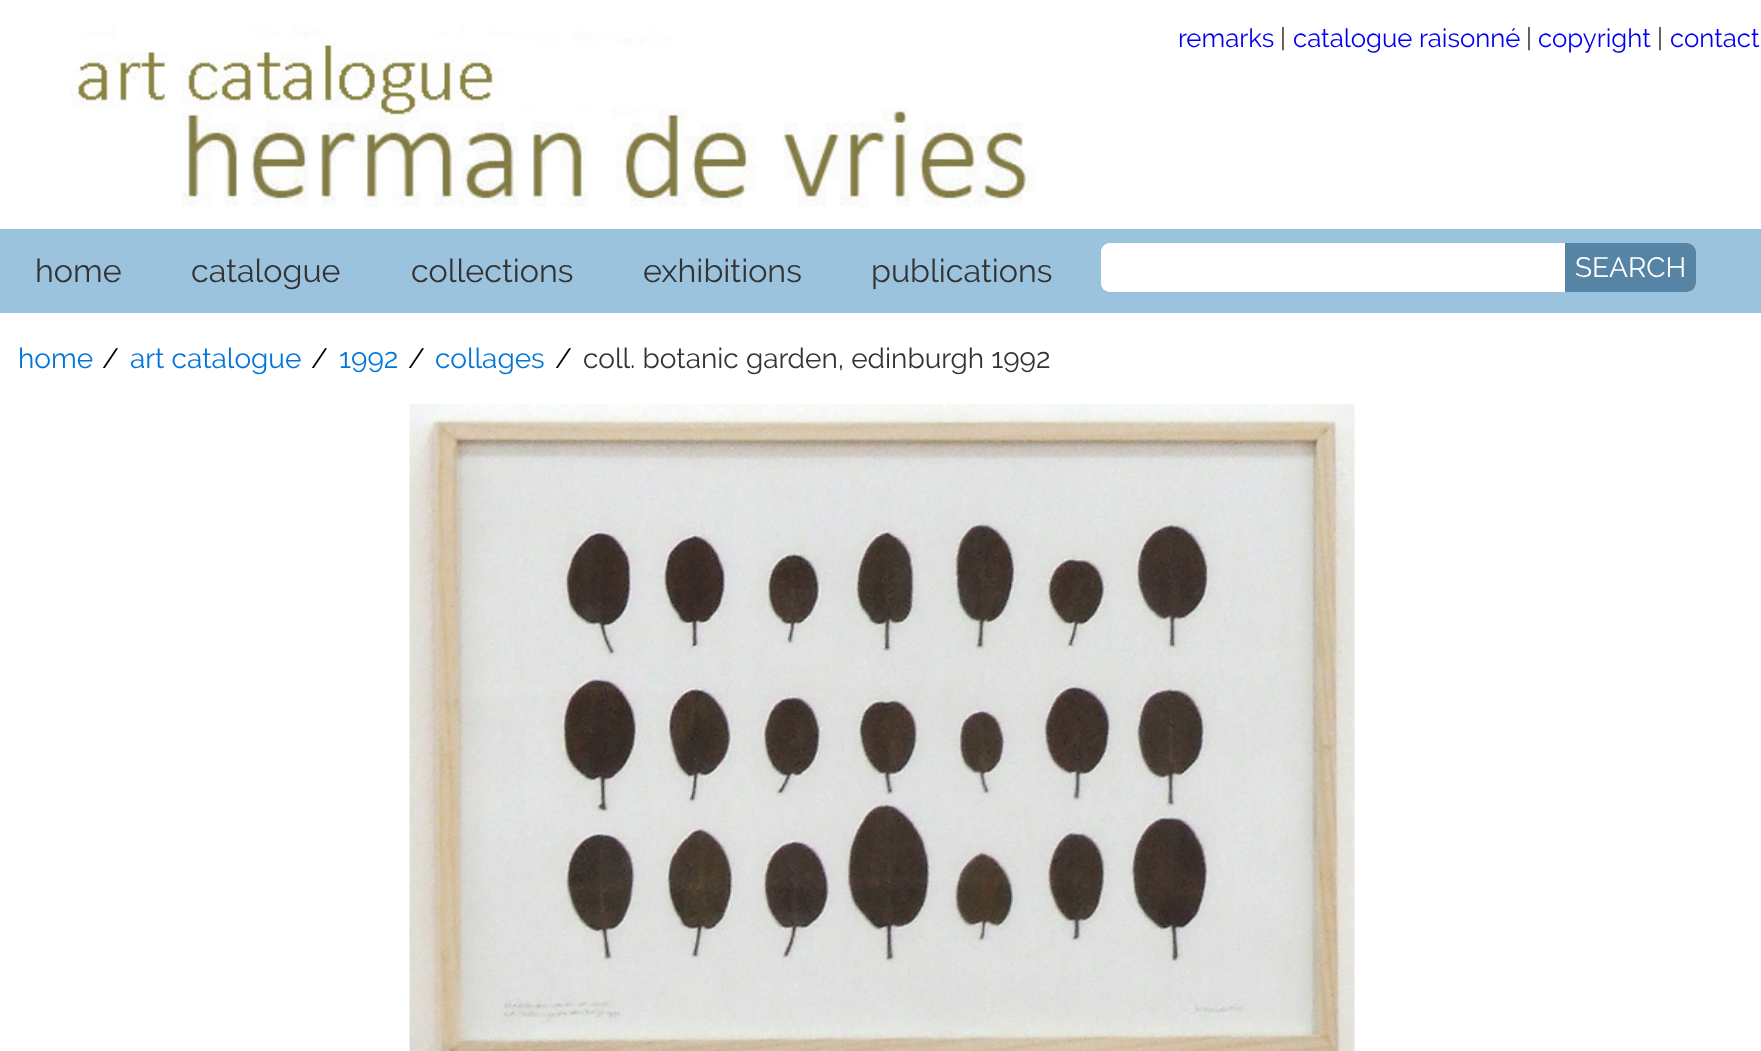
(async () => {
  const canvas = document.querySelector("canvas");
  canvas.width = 1761;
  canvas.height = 1051;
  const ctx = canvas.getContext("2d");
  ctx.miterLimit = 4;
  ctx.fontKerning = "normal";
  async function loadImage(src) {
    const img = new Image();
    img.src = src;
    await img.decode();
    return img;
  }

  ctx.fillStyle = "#ffffff";
  ctx.fillRect(0, 0, 1761, 1051);
  ctx.drawImage(await loadImage("img/1.png"), 70, 25, 966, 182);
  ctx.fillStyle = "#9cc3dd";
  ctx.fillRect(0, 229, 1761, 84);
  ctx.fillStyle = "#ffffff";
  ctx.beginPath();
  ctx.roundRect(1101, 243, 595, 49, 9);
  ctx.fill();
  ctx.save();
  ctx.beginPath();
  ctx.roundRect(1101, 243, 595, 49, 9);
  ctx.clip();
  ctx.beginPath();
  ctx.roundRect(1101, 243, 535, 48, [9, 9, 9, 0]);
  ctx.fill();
  ctx.restore();
  ctx.fillStyle = "#5684a4";
  ctx.beginPath();
  ctx.roundRect(1565, 243, 131, 49, [0, 9, 9, 0]);
  ctx.fill();
  ctx.drawImage(await loadImage("img/2.png"), 409, 404, 946, 647);
  ctx.font = "25.75px Raleway";
  ctx.fillStyle = "#0000ee";
  ctx.fillText("remarks", 1178, 47);
  ctx.fillStyle = "#333333";
  ctx.fillText("|", 1280, 47);
  ctx.fillStyle = "#0000ee";
  ctx.fillText("catalogue raisonné", 1293, 47);
  ctx.fillStyle = "#333333";
  ctx.fillText("|", 1526, 47);
  ctx.fillStyle = "#0000ee";
  ctx.fillText("copyright", 1538, 47);
  ctx.fillStyle = "#333333";
  ctx.fillText("|", 1657, 47);
  ctx.fillStyle = "#0000ee";
  ctx.fillText("contact", 1670, 47);
  ctx.font = "32.25px Raleway";
  ctx.fillStyle = "#333333";
  for (const [text, x, y] of [
    ["home", 35, 282],
    ["catalogue", 191, 282],
    ["collections", 411, 282],
    ["exhibitions", 643, 282],
    ["publications", 871, 282],
  ]) {
    ctx.fillText(text, x, y);
  }
  ctx.font = "28px Raleway";
  ctx.fillStyle = "#ffffff";
  ctx.fillText("SEARCH", 1575, 277);
  ctx.fillStyle = "#0275d8";
  ctx.fillText("home", 18, 368);
  ctx.fillStyle = "#000000";
  ctx.fillText("/", 102, 368);
  ctx.fillStyle = "#0275d8";
  ctx.fillText("art catalogue", 130, 368);
  ctx.fillStyle = "#000000";
  ctx.fillText("/", 311, 368);
  ctx.fillStyle = "#0275d8";
  ctx.fillText("1992", 339, 368);
  ctx.fillStyle = "#000000";
  ctx.fillText("/", 408, 368);
  ctx.fillStyle = "#0275d8";
  ctx.fillText("collages", 435, 368);
  ctx.fillStyle = "#000000";
  ctx.fillText("/", 555, 368);
  ctx.fillStyle = "#333333";
  ctx.fillText("coll. botanic garden, edinburgh 1992", 583, 368);
})();
